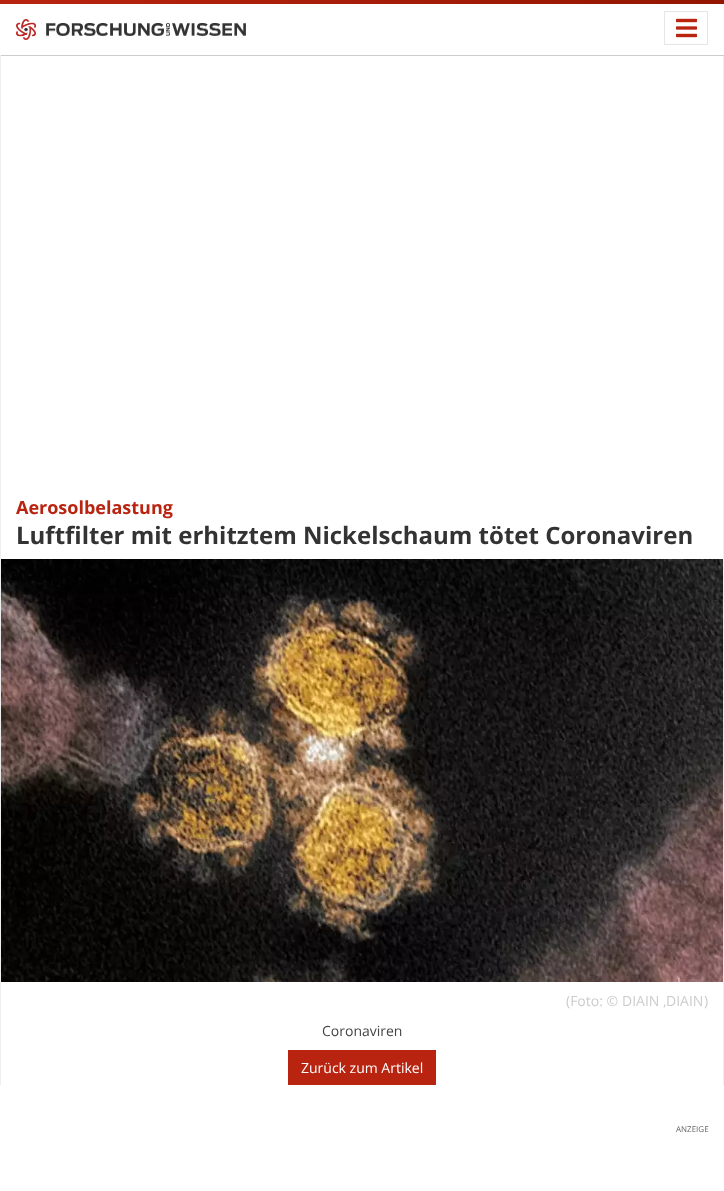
(async () => {
  const canvas = document.querySelector("canvas");
  canvas.width = 724;
  canvas.height = 1191;
  const ctx = canvas.getContext("2d");
  ctx.miterLimit = 4;
  ctx.fontKerning = "normal";
  async function loadImage(src) {
    const img = new Image();
    img.src = src;
    await img.decode();
    return img;
  }
  let gradient;

  ctx.fillStyle = "#ffffff";
  ctx.fillRect(0, 0, 724, 1191);
  ctx.fillStyle = "#cccccc";
  ctx.fillRect(0, 55, 724, 1);
  ctx.fillStyle = "#eeeeee";
  ctx.fillRect(0, 55, 1, 1);
  gradient = ctx.createLinearGradient(-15, 2, 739, 2);
  gradient.addColorStop(0, "#b92410");
  gradient.addColorStop(1, "#921500");
  ctx.fillStyle = gradient;
  ctx.fillRect(0, 0, 724, 4);
  ctx.drawImage(await loadImage("img/1.png"), 16, 19, 20, 21);
  ctx.drawImage(await loadImage("img/2.png"), 46, 23, 200, 13);
  ctx.strokeStyle = "#e6e6e6";
  ctx.strokeRect(664.5, 11.5, 43, 33);
  ctx.drawImage(await loadImage("img/3.png"), 676, 18, 21, 20);
  ctx.fillStyle = "#eeeeee";
  ctx.fillRect(723, 56, 1, 1029);
  ctx.fillRect(0, 56, 1, 1029);
  ctx.drawImage(await loadImage("img/4.png"), 1, 559, 722, 423);
  ctx.fillStyle = "#b92410";
  ctx.fillRect(288, 1050, 148, 35);
  ctx.font = "bold 18px Open Sans";
  ctx.fillText("Aerosolbelastung", 16, 514);
  ctx.font = "bold 24px Open Sans";
  ctx.fillStyle = "#333333";
  ctx.fillText("Luftfilter mit erhitztem Nickelschaum tötet Coronaviren", 16, 544);
  ctx.font = "14px Open Sans";
  ctx.fillStyle = "#cccccc";
  for (const [text, x, y] of [
    ["(Foto: ©", 566, 1006],
    ["DIAIN", 622, 1006],
    [",", 663, 1006],
    ["DIAIN", 666, 1006],
    [")", 704, 1006],
  ]) {
    ctx.fillText(text, x, y);
  }
  ctx.fillStyle = "#444444";
  ctx.fillText("Coronaviren", 322, 1036);
  ctx.fillStyle = "#ffffff";
  ctx.fillText("Zurück zum Artikel", 301, 1073);
  ctx.font = "8px Open Sans";
  ctx.fillStyle = "#666666";
  ctx.fillText("ANZEIGE", 676, 1132);
})();
